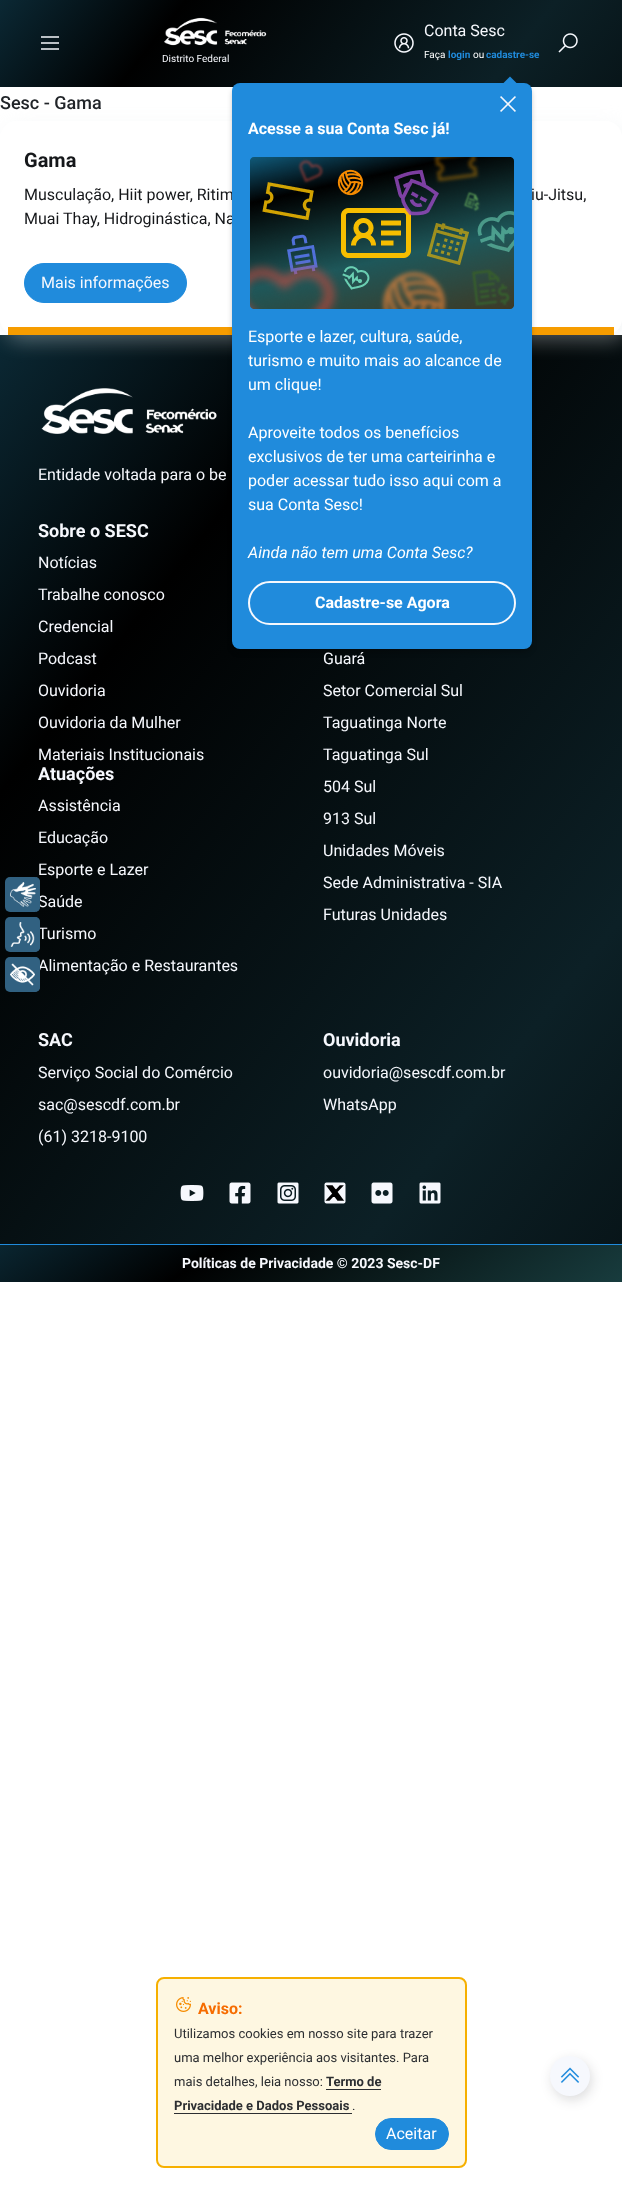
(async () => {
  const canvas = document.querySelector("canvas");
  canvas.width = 622;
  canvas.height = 2192;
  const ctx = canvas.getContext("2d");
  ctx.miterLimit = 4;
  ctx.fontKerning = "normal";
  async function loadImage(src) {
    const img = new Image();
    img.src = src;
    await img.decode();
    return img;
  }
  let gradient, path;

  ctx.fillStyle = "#ffffff";
  ctx.fillRect(0, 0, 622, 2192);
  gradient = ctx.createLinearGradient(96, -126, 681, 336);
  gradient.addColorStop(0, "#0b2935");
  gradient.addColorStop(0.2, "#000000");
  gradient.addColorStop(0.59, "#0c2026");
  gradient.addColorStop(1, "#000000");
  ctx.fillStyle = gradient;
  ctx.fillRect(0, 0, 622, 87);
  ctx.drawImage(await loadImage("img/1.png"), 41, 36, 18, 14);
  gradient = ctx.createLinearGradient(-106, 460, 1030, 1358);
  gradient.addColorStop(0, "#0b2935");
  gradient.addColorStop(0.2, "#000000");
  gradient.addColorStop(0.59, "#0c2026");
  gradient.addColorStop(1, "#000000");
  ctx.fillStyle = gradient;
  ctx.fillRect(0, 335, 622, 909);
  ctx.fillStyle = "rgba(222, 229, 233, 0.35)";
  ctx.filter = "blur(10px)";
  ctx.beginPath();
  ctx.roundRect(5, 127, 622, 214, 16);
  ctx.fill();
  ctx.filter = "none";
  ctx.fillStyle = "#ffffff";
  ctx.beginPath();
  ctx.roundRect(0, 121, 622, 214, 16);
  ctx.fill();
  ctx.fillStyle = "#f69c00";
  ctx.fillRect(8, 327, 606, 8);
  ctx.fillStyle = "rgba(0, 0, 0, 0.2)";
  ctx.filter = "blur(2.5px)";
  ctx.beginPath();
  ctx.roundRect(232, 87, 300, 566, 8);
  ctx.fill();
  ctx.filter = "none";
  ctx.drawImage(await loadImage("img/4.png"), 394, 33, 20, 20);
  ctx.drawImage(await loadImage("img/5.png"), 558, 33, 20, 20);
  ctx.drawImage(await loadImage("img/6.png"), 164, 17, 103, 29);
  ctx.fillStyle = "#208bdc";
  ctx.beginPath();
  ctx.roundRect(24.5, 263.5, 162, 39, 19.5);
  ctx.fill();
  ctx.strokeStyle = "#208bdc";
  ctx.stroke();
  ctx.fillStyle = "rgba(21, 23, 26, 0.15)";
  ctx.filter = "blur(6px)";
  ctx.beginPath();
  ctx.roundRect(552, 2060, 40, 40, 20);
  ctx.fill();
  ctx.filter = "none";
  ctx.fillStyle = "#f6f8fd";
  ctx.beginPath();
  ctx.arc(570, 2076, 20, 0, Math.PI * 2);
  ctx.fill();
  ctx.drawImage(await loadImage("img/7.png"), 560, 2067, 20, 16);
  ctx.drawImage(await loadImage("img/8.png"), 41, 388, 176, 46);
  ctx.drawImage(await loadImage("img/9.png"), 180, 1185, 24, 16);
  ctx.drawImage(await loadImage("img/10.png"), 229, 1182, 22, 22);
  ctx.drawImage(await loadImage("img/11.png"), 277, 1182, 22, 22);
  ctx.drawImage(await loadImage("img/12.png"), 324, 1182, 22, 22);
  ctx.drawImage(await loadImage("img/13.png"), 371, 1182, 22, 22);
  ctx.drawImage(await loadImage("img/14.png"), 419, 1182, 22, 22);
  gradient = ctx.createLinearGradient(197, 1096, 585, 1668);
  gradient.addColorStop(0, "#0b2935");
  gradient.addColorStop(0.2, "#000000");
  gradient.addColorStop(0.6, "#1a4143");
  gradient.addColorStop(1, "#000000");
  ctx.fillStyle = gradient;
  ctx.fillRect(0, 1245, 622, 37);
  ctx.fillStyle = "#208bdc";
  ctx.fillRect(0, 1244, 622, 1);
  ctx.fillStyle = "#fef7e1";
  ctx.beginPath();
  ctx.roundRect(157, 1978, 309, 189, 7);
  ctx.fill();
  ctx.strokeStyle = "#f6b000";
  ctx.lineWidth = 2;
  ctx.stroke();
  ctx.drawImage(await loadImage("img/18.png"), 176, 1997, 15, 15);
  ctx.fillStyle = "#2c2e31";
  ctx.fillRect(326, 2089, 55, 1);
  ctx.fillRect(174, 2113, 178, 1);
  ctx.fillStyle = "#208bdc";
  ctx.beginPath();
  ctx.roundRect(375.5, 2118.5, 73, 31, 15.5);
  ctx.fill();
  ctx.strokeStyle = "#208bdc";
  ctx.lineWidth = 1;
  ctx.stroke();
  ctx.font = "16px Roboto";
  ctx.fillStyle = "#f6f8fd";
  ctx.fillText("Conta Sesc", 424, 36);
  ctx.font = "10px Roboto";
  ctx.fillStyle = "#ffffff";
  ctx.fillText("Faça", 424, 58);
  ctx.font = "bold 10px Roboto";
  ctx.fillStyle = "#208bdc";
  ctx.fillText("login", 448, 58);
  ctx.font = "10px Roboto";
  ctx.fillStyle = "#ffffff";
  ctx.fillText("ou", 473, 58);
  ctx.font = "bold 10px Roboto";
  ctx.fillStyle = "#208bdc";
  ctx.fillText("cadastre-se", 486, 58);
  ctx.font = "10px Roboto";
  ctx.fillStyle = "#f6f8fd";
  ctx.fillText("Distrito Federal", 162, 62);
  ctx.font = "500 18px Roboto";
  ctx.fillStyle = "#212529";
  ctx.fillText("Sesc - Gama", 0, 109);
  ctx.font = "bold 20px Roboto";
  ctx.fillStyle = "#15171a";
  ctx.fillText("Gama", 24, 167);
  ctx.font = "16px Roboto";
  for (const [text, x, y] of [
    ["Musculação, Hiit power, Ritim", 24, 200],
    ["iu-Jitsu,", 531, 200],
    ["Muai Thay, Hidroginástica, Na", 24, 224],
  ]) {
    ctx.fillText(text, x, y);
  }
  ctx.fillStyle = "#208bdc";
  ctx.beginPath();
  ctx.roundRect(232, 83, 300, 566, 8);
  ctx.fill();
  path = new Path2D("M510 76.5L519.5 86H500.5Z");
  ctx.fill(path);
  ctx.drawImage(await loadImage("img/2.png"), 500, 96, 16, 16);
  ctx.beginPath();
  ctx.roundRect(249, 582, 266, 42, 21);
  ctx.strokeStyle = "#f6f8fd";
  ctx.lineWidth = 2;
  ctx.stroke();
  ctx.font = "bold 16px Roboto";
  ctx.fillStyle = "#ffffff";
  ctx.fillText("Cadastre-se Agora", 315, 608);
  ctx.font = "italic 16px Roboto";
  ctx.fillText("Ainda não tem uma Conta Sesc?", 248, 558);
  ctx.font = "16px Roboto";
  for (const [text, x, y] of [
    ["sua Conta Sesc!", 248, 510],
    ["poder acessar tudo isso aqui com a", 248, 486],
    ["exclusivos de ter uma carteirinha e", 248, 462],
    ["Aproveite todos os benefícios", 248, 438],
    ["um clique!", 248, 390],
    ["turismo e muito mais ao alcance de", 248, 366],
    ["Esporte e lazer, cultura, saúde,", 248, 342],
  ]) {
    ctx.fillText(text, x, y);
  }
  ctx.drawImage(await loadImage("img/3.png"), 250, 157, 264, 152);
  ctx.font = "bold 16px Roboto";
  ctx.fillText("Acesse a sua Conta Sesc já!", 248, 134);
  ctx.font = "16px Roboto";
  ctx.fillStyle = "#f6f8fd";
  ctx.fillText("Mais informações", 41, 288);
  ctx.fillText("Entidade voltada para o be", 38, 480);
  ctx.font = "bold 18px Roboto";
  ctx.fillText("Sobre o SESC", 38, 537);
  ctx.font = "16px Roboto";
  for (const [text, x, y] of [
    ["Notícias", 38, 568],
    ["Trabalhe conosco", 38, 600],
    ["Credencial", 38, 632],
    ["Podcast", 38, 664],
    ["Ouvidoria", 38, 696],
    ["Ouvidoria da Mulher", 38, 728],
    ["Materiais Institucionais", 38, 760],
    ["Guará", 323, 664],
    ["Setor Comercial Sul", 323, 696],
    ["Taguatinga Norte", 323, 728],
    ["Taguatinga Sul", 323, 760],
    ["504 Sul", 323, 792],
    ["913 Sul", 323, 824],
    ["Unidades Móveis", 323, 856],
    ["Sede Administrativa - SIA", 323, 888],
    ["Futuras Unidades", 323, 920],
  ]) {
    ctx.fillText(text, x, y);
  }
  ctx.font = "bold 18px Roboto";
  ctx.fillText("Atuações", 38, 780);
  ctx.font = "16px Roboto";
  for (const [text, x, y] of [
    ["Assistência", 38, 811],
    ["Educação", 38, 843],
    ["Esporte e Lazer", 38, 875],
    ["Saúde", 38, 907],
    ["Turismo", 38, 939],
    ["Alimentação e Restaurantes", 38, 971],
  ]) {
    ctx.fillText(text, x, y);
  }
  ctx.font = "bold 18px Roboto";
  ctx.fillText("SAC", 38, 1046);
  ctx.font = "16px Roboto";
  for (const [text, x, y] of [
    ["Serviço Social do Comércio", 38, 1078],
    ["sac@sescdf.com.br", 38, 1110],
    ["(61) 3218-9100", 38, 1142],
  ]) {
    ctx.fillText(text, x, y);
  }
  ctx.font = "bold 18px Roboto";
  ctx.fillText("Ouvidoria", 323, 1046);
  ctx.font = "16px Roboto";
  ctx.fillText("ouvidoria@sescdf.com.br", 323, 1078);
  ctx.fillText("WhatsApp", 323, 1110);
  ctx.font = "bold 14px Roboto";
  ctx.fillText("Políticas de Privacidade © 2023 Sesc-DF", 182, 1268);
  ctx.fillStyle = "#316181";
  ctx.beginPath();
  ctx.roundRect(5, 877, 35, 35, 5);
  ctx.fill();
  ctx.drawImage(await loadImage("img/15.png"), 10, 882, 26, 25);
  ctx.save();
  ctx.beginPath();
  ctx.roundRect(5, 877, 35, 35, 5);
  ctx.clip();
  ctx.fillRect(36, 877, 4, 35);
  ctx.restore();
  ctx.beginPath();
  ctx.roundRect(5, 917, 35, 35, 5);
  ctx.fill();
  ctx.drawImage(await loadImage("img/16.png"), 10, 922, 25, 25);
  ctx.beginPath();
  ctx.roundRect(35, 917, 5, 35, [0, 5, 5, 0]);
  ctx.fill();
  ctx.beginPath();
  ctx.roundRect(5, 957, 35, 35, 5);
  ctx.fill();
  ctx.drawImage(await loadImage("img/17.png"), 10, 963, 25, 23);
  ctx.beginPath();
  ctx.roundRect(35, 957, 5, 35, [0, 5, 5, 0]);
  ctx.fill();
  ctx.font = "bold 16px Roboto";
  ctx.fillStyle = "#f66c00";
  ctx.fillText("Aviso:", 198, 2014);
  ctx.font = "13px Roboto";
  ctx.fillStyle = "#2c2e31";
  for (const [text, x, y] of [
    ["Utilizamos cookies em nosso site para trazer", 174, 2038],
    ["uma melhor experiência aos visitantes. Para", 174, 2062],
    ["mais detalhes, leia nosso:", 174, 2086],
  ]) {
    ctx.fillText(text, x, y);
  }
  ctx.font = "bold 13px Roboto";
  ctx.fillText("Termo de", 326, 2086);
  ctx.fillText("Privacidade e Dados Pessoais", 174, 2110);
  ctx.font = "13px Roboto";
  ctx.fillText(".", 352, 2110);
  ctx.font = "16px Roboto";
  ctx.fillStyle = "#ffffff";
  ctx.fillText("Aceitar", 386, 2139);
})();
